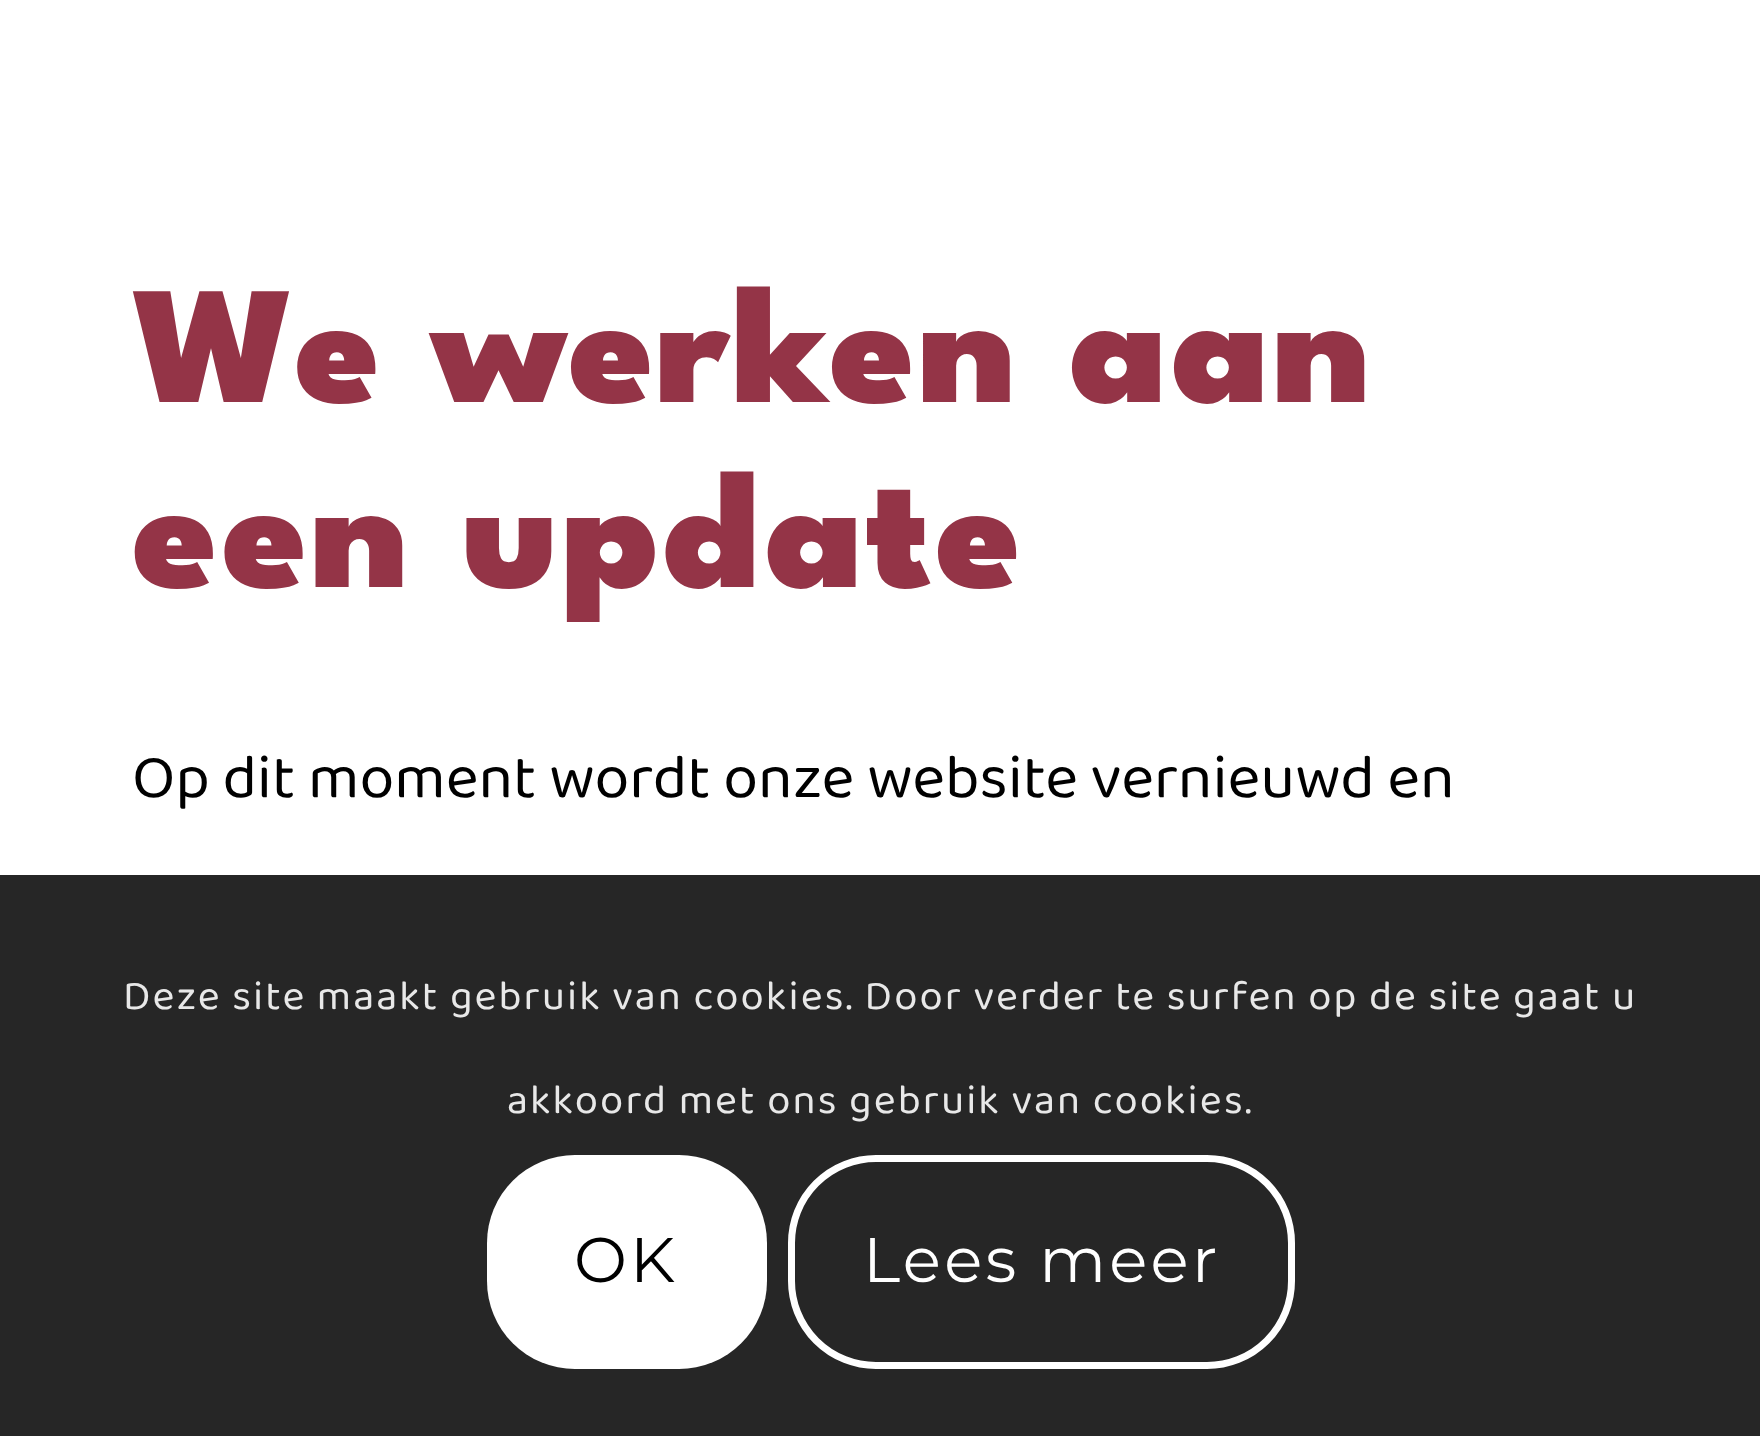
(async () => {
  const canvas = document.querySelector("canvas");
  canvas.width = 1760;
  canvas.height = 1436;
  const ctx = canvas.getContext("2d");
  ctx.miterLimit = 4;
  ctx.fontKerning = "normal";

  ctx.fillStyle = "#ffffff";
  ctx.fillRect(0, 0, 1760, 1436);
  ctx.fillStyle = "rgba(0, 0, 0, 0.85)";
  ctx.fillRect(0, 875, 1760, 561);
  ctx.fillStyle = "#ffffff";
  ctx.beginPath();
  ctx.roundRect(487, 1155, 280, 214, 88);
  ctx.fill();
  ctx.beginPath();
  ctx.roundRect(791.5, 1158.5, 500, 207, 84.5);
  ctx.strokeStyle = "#ffffff";
  ctx.lineWidth = 7;
  ctx.stroke();
  ctx.letterSpacing = "3.5px";
  ctx.font = "100 168px League Spartan";
  ctx.fillStyle = "#943447";
  ctx.fillText("We werken aan", 132, 402);
  ctx.fillText("een update", 132, 587);
  ctx.letterSpacing = "0px";
  ctx.font = "63px 'Baloo 2'";
  ctx.fillStyle = "#000000";
  ctx.fillText("Op dit moment wordt onze website vernieuwd en", 132, 797);
  ctx.letterSpacing = "2.1px";
  ctx.font = "42px 'Baloo 2'";
  ctx.fillStyle = "#e8e8e8";
  ctx.fillText("Deze site maakt gebruik van cookies. Door verder te surfen op de site gaat u", 123, 1009);
  ctx.fillText("akkoord met ons gebruik van cookies.", 507, 1113);
  ctx.letterSpacing = "3.25px";
  ctx.font = "63px Montserrat";
  ctx.fillStyle = "#000000";
  ctx.fillText("OK", 574, 1282);
  ctx.fillStyle = "#ffffff";
  ctx.fillText("Lees meer", 863, 1282);
})();
